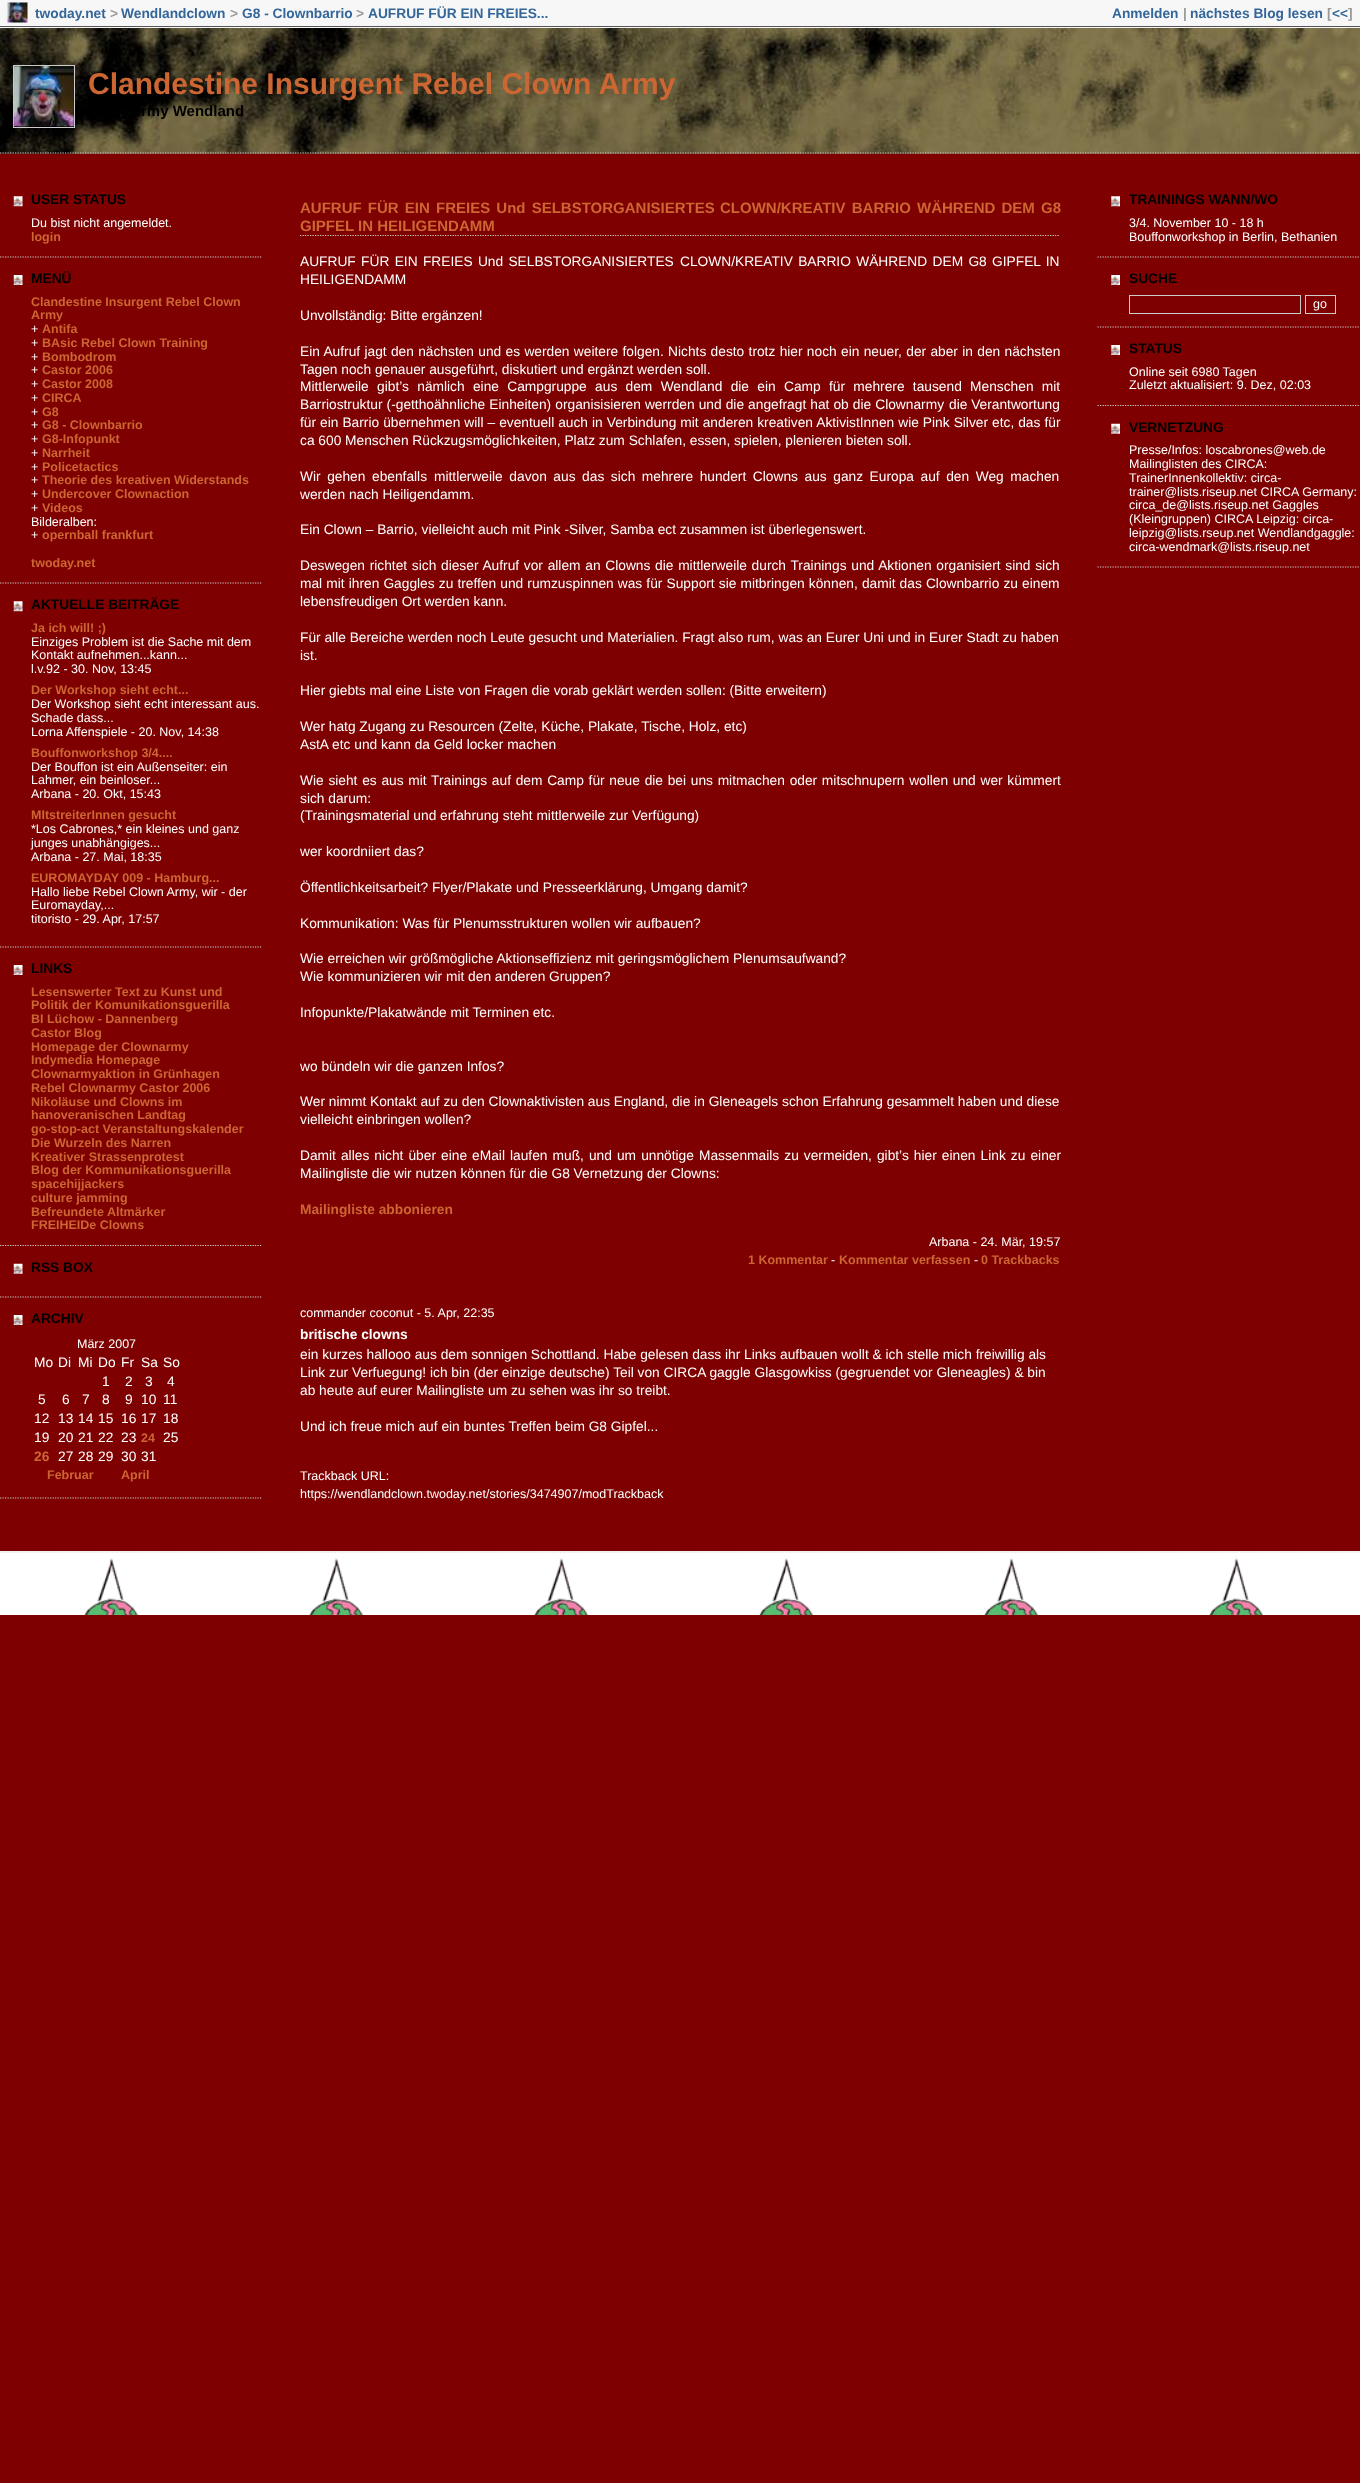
(async () => {
  const canvas = document.querySelector("canvas");
  canvas.width = 1360;
  canvas.height = 2483;
  const ctx = canvas.getContext("2d");
  ctx.miterLimit = 4;
  ctx.fontKerning = "normal";
  async function loadImage(src) {
    const img = new Image();
    img.src = src;
    await img.decode();
    return img;
  }
  let path;

  ctx.fillStyle = "#7f0000";
  ctx.fillRect(0, 0, 1360, 2483);
  ctx.fillStyle = "#f7f7f7";
  ctx.fillRect(0, 0, 1360, 28);
  ctx.fillStyle = "#555555";
  ctx.fillRect(0, 26, 1360, 1);
  ctx.drawImage(await loadImage("img/1.png"), 7, 2, 21, 21);
  ctx.drawImage(await loadImage("img/2.png"), 0, 28, 1360, 126);
  path = new Path2D("M0 153H1360");
  ctx.strokeStyle = "#cccccc";
  ctx.lineWidth = 1.2;
  ctx.setLineDash([1.25, 1.25]);
  ctx.stroke(path);
  ctx.lineWidth = 1;
  ctx.setLineDash([]);
  ctx.strokeRect(13.5, 65.5, 61, 62);
  ctx.drawImage(await loadImage("img/3.png"), 13, 66, 61, 61);
  ctx.drawImage(await loadImage("img/4.png"), 13, 196, 10, 11);
  path = new Path2D("M0 257H262.5");
  ctx.lineWidth = 1.2;
  ctx.setLineDash([1.25, 1.25]);
  ctx.stroke(path);
  ctx.drawImage(await loadImage("img/5.png"), 13, 275, 10, 10);
  path = new Path2D("M0 583H262.5");
  ctx.stroke(path);
  ctx.drawImage(await loadImage("img/4.png"), 13, 601, 10, 11);
  path = new Path2D("M0 947H262.5");
  ctx.stroke(path);
  ctx.drawImage(await loadImage("img/5.png"), 13, 965, 10, 10);
  path = new Path2D("M0 1245.5H262.5");
  ctx.stroke(path);
  ctx.drawImage(await loadImage("img/6.png"), 13, 1263, 10, 11);
  path = new Path2D("M0 1297H262.5");
  ctx.stroke(path);
  ctx.drawImage(await loadImage("img/5.png"), 13, 1315, 10, 10);
  path = new Path2D("M0 1498H262.5");
  ctx.stroke(path);
  path = new Path2D("M300 235.5H1060");
  ctx.stroke(path);
  ctx.drawImage(await loadImage("img/7.png"), 1111, 196, 9, 11);
  path = new Path2D("M1097.5 257H1360");
  ctx.stroke(path);
  ctx.drawImage(await loadImage("img/8.png"), 1111, 275, 9, 10);
  path = new Path2D("M1097.5 327H1360");
  ctx.stroke(path);
  ctx.lineWidth = 1;
  ctx.setLineDash([]);
  ctx.strokeRect(1129.5, 295.5, 171, 18);
  ctx.strokeRect(1305.5, 295.5, 30, 18);
  ctx.drawImage(await loadImage("img/8.png"), 1111, 345, 9, 10);
  path = new Path2D("M1097.5 405.5H1360");
  ctx.lineWidth = 1.2;
  ctx.setLineDash([1.25, 1.25]);
  ctx.stroke(path);
  ctx.drawImage(await loadImage("img/9.png"), 1111, 423, 9, 11);
  path = new Path2D("M1097.5 567H1360");
  ctx.stroke(path);
  ctx.fillStyle = "#ffffff";
  ctx.fillRect(0, 1551, 1360, 64);
  ctx.drawImage(await loadImage("img/10.png"), 84, 1558, 1179, 57);
  path = new Path2D("M0 1552H1360");
  ctx.stroke(path);
  ctx.font = "bold 13.75px Liberation Sans";
  ctx.fillStyle = "#336699";
  ctx.fillText("twoday.net", 35, 18);
  ctx.fillStyle = "#999999";
  ctx.fillText(">", 110, 18);
  ctx.fillStyle = "#336699";
  ctx.fillText("Wendlandclown", 121, 18);
  ctx.fillStyle = "#999999";
  ctx.fillText(">", 230, 18);
  ctx.fillStyle = "#336699";
  ctx.fillText("G8 - Clownbarrio", 242, 18);
  ctx.fillStyle = "#999999";
  ctx.fillText(">", 356, 18);
  ctx.fillStyle = "#336699";
  ctx.fillText("AUFRUF FÜR EIN FREIES...", 368, 18);
  ctx.fillText("Anmelden", 1112, 18);
  ctx.fillStyle = "#999999";
  ctx.fillText("|", 1183, 18);
  ctx.fillStyle = "#336699";
  ctx.fillText("nächstes Blog lesen", 1190, 18);
  ctx.fillStyle = "#999999";
  ctx.fillText("[", 1327, 18);
  ctx.fillStyle = "#336699";
  ctx.fillText("<<", 1332, 18);
  ctx.fillStyle = "#999999";
  ctx.fillText("]", 1348, 18);
  ctx.font = "bold 30px Liberation Sans";
  ctx.fillStyle = "#cc6633";
  ctx.fillText("Clandestine Insurgent Rebel Clown Army", 88, 94);
  ctx.font = "bold 15px Liberation Sans";
  ctx.fillStyle = "#000000";
  ctx.fillText("rmy Wendland", 141, 116);
  ctx.font = "bold 13.75px Liberation Sans";
  ctx.fillText("USER STATUS", 31, 204);
  ctx.font = "12.5px Liberation Sans";
  ctx.fillStyle = "#ffffff";
  ctx.fillText("Du bist nicht angemeldet.", 31, 227);
  ctx.font = "bold 12.5px Liberation Sans";
  ctx.fillStyle = "#cc6633";
  ctx.fillText("login", 31, 241);
  ctx.font = "bold 13.75px Liberation Sans";
  ctx.fillStyle = "#000000";
  ctx.fillText("MENÜ", 31, 283);
  ctx.font = "bold 12.5px Liberation Sans";
  ctx.fillStyle = "#cc6633";
  ctx.fillText("Clandestine Insurgent Rebel Clown", 31, 306);
  ctx.fillText("Army", 31, 319);
  ctx.font = "12.5px Liberation Sans";
  ctx.fillStyle = "#ffffff";
  ctx.fillText("+", 31, 333);
  ctx.font = "bold 12.5px Liberation Sans";
  ctx.fillStyle = "#cc6633";
  ctx.fillText("Antifa", 42, 333);
  ctx.font = "12.5px Liberation Sans";
  ctx.fillStyle = "#ffffff";
  ctx.fillText("+", 31, 347);
  ctx.font = "bold 12.5px Liberation Sans";
  ctx.fillStyle = "#cc6633";
  ctx.fillText("BAsic Rebel Clown Training", 42, 347);
  ctx.font = "12.5px Liberation Sans";
  ctx.fillStyle = "#ffffff";
  ctx.fillText("+", 31, 361);
  ctx.font = "bold 12.5px Liberation Sans";
  ctx.fillStyle = "#cc6633";
  ctx.fillText("Bombodrom", 42, 361);
  ctx.font = "12.5px Liberation Sans";
  ctx.fillStyle = "#ffffff";
  ctx.fillText("+", 31, 374);
  ctx.font = "bold 12.5px Liberation Sans";
  ctx.fillStyle = "#cc6633";
  ctx.fillText("Castor 2006", 42, 374);
  ctx.font = "12.5px Liberation Sans";
  ctx.fillStyle = "#ffffff";
  ctx.fillText("+", 31, 388);
  ctx.font = "bold 12.5px Liberation Sans";
  ctx.fillStyle = "#cc6633";
  ctx.fillText("Castor 2008", 42, 388);
  ctx.font = "12.5px Liberation Sans";
  ctx.fillStyle = "#ffffff";
  ctx.fillText("+", 31, 402);
  ctx.font = "bold 12.5px Liberation Sans";
  ctx.fillStyle = "#cc6633";
  ctx.fillText("CIRCA", 42, 402);
  ctx.font = "12.5px Liberation Sans";
  ctx.fillStyle = "#ffffff";
  ctx.fillText("+", 31, 416);
  ctx.font = "bold 12.5px Liberation Sans";
  ctx.fillStyle = "#cc6633";
  ctx.fillText("G8", 42, 416);
  ctx.font = "12.5px Liberation Sans";
  ctx.fillStyle = "#ffffff";
  ctx.fillText("+", 31, 429);
  ctx.font = "bold 12.5px Liberation Sans";
  ctx.fillStyle = "#cc6633";
  ctx.fillText("G8 - Clownbarrio", 42, 429);
  ctx.font = "12.5px Liberation Sans";
  ctx.fillStyle = "#ffffff";
  ctx.fillText("+", 31, 443);
  ctx.font = "bold 12.5px Liberation Sans";
  ctx.fillStyle = "#cc6633";
  ctx.fillText("G8-Infopunkt", 42, 443);
  ctx.font = "12.5px Liberation Sans";
  ctx.fillStyle = "#ffffff";
  ctx.fillText("+", 31, 457);
  ctx.font = "bold 12.5px Liberation Sans";
  ctx.fillStyle = "#cc6633";
  ctx.fillText("Narrheit", 42, 457);
  ctx.font = "12.5px Liberation Sans";
  ctx.fillStyle = "#ffffff";
  ctx.fillText("+", 31, 471);
  ctx.font = "bold 12.5px Liberation Sans";
  ctx.fillStyle = "#cc6633";
  ctx.fillText("Policetactics", 42, 471);
  ctx.font = "12.5px Liberation Sans";
  ctx.fillStyle = "#ffffff";
  ctx.fillText("+", 31, 484);
  ctx.font = "bold 12.5px Liberation Sans";
  ctx.fillStyle = "#cc6633";
  ctx.fillText("Theorie des kreativen Widerstands", 42, 484);
  ctx.font = "12.5px Liberation Sans";
  ctx.fillStyle = "#ffffff";
  ctx.fillText("+", 31, 498);
  ctx.font = "bold 12.5px Liberation Sans";
  ctx.fillStyle = "#cc6633";
  ctx.fillText("Undercover Clownaction", 42, 498);
  ctx.font = "12.5px Liberation Sans";
  ctx.fillStyle = "#ffffff";
  ctx.fillText("+", 31, 512);
  ctx.font = "bold 12.5px Liberation Sans";
  ctx.fillStyle = "#cc6633";
  ctx.fillText("Videos", 42, 512);
  ctx.font = "12.5px Liberation Sans";
  ctx.fillStyle = "#ffffff";
  ctx.fillText("Bilderalben:", 31, 526);
  ctx.fillText("+", 31, 539);
  ctx.font = "bold 12.5px Liberation Sans";
  ctx.fillStyle = "#cc6633";
  ctx.fillText("opernball frankfurt", 42, 539);
  ctx.fillText("twoday.net", 31, 567);
  ctx.font = "bold 13.75px Liberation Sans";
  ctx.fillStyle = "#000000";
  ctx.fillText("AKTUELLE BEITRÄGE", 31, 609);
  ctx.font = "bold 12.5px Liberation Sans";
  ctx.fillStyle = "#cc6633";
  ctx.fillText("Ja ich will! ;)", 31, 632);
  ctx.font = "12.5px Liberation Sans";
  ctx.fillStyle = "#ffffff";
  for (const [text, x, y] of [
    ["Einziges Problem ist die Sache mit dem", 31, 646],
    ["Kontakt aufnehmen...kann...", 31, 659],
    ["l.v.92 - 30. Nov, 13:45", 31, 673],
  ]) {
    ctx.fillText(text, x, y);
  }
  ctx.font = "bold 12.5px Liberation Sans";
  ctx.fillStyle = "#cc6633";
  ctx.fillText("Der Workshop sieht echt...", 31, 694);
  ctx.font = "12.5px Liberation Sans";
  ctx.fillStyle = "#ffffff";
  for (const [text, x, y] of [
    ["Der Workshop sieht echt interessant aus.", 31, 708],
    ["Schade dass...", 31, 722],
    ["Lorna Affenspiele - 20. Nov, 14:38", 31, 736],
  ]) {
    ctx.fillText(text, x, y);
  }
  ctx.font = "bold 12.5px Liberation Sans";
  ctx.fillStyle = "#cc6633";
  ctx.fillText("Bouffonworkshop 3/4....", 31, 757);
  ctx.font = "12.5px Liberation Sans";
  ctx.fillStyle = "#ffffff";
  for (const [text, x, y] of [
    ["Der Bouffon ist ein Außenseiter: ein", 31, 771],
    ["Lahmer, ein beinloser...", 31, 784],
    ["Arbana - 20. Okt, 15:43", 31, 798],
  ]) {
    ctx.fillText(text, x, y);
  }
  ctx.font = "bold 12.5px Liberation Sans";
  ctx.fillStyle = "#cc6633";
  ctx.fillText("MItstreiterInnen gesucht", 31, 819);
  ctx.font = "12.5px Liberation Sans";
  ctx.fillStyle = "#ffffff";
  for (const [text, x, y] of [
    ["*Los Cabrones,* ein kleines und ganz", 31, 833],
    ["junges unabhängiges...", 31, 847],
    ["Arbana - 27. Mai, 18:35", 31, 861],
  ]) {
    ctx.fillText(text, x, y);
  }
  ctx.font = "bold 12.5px Liberation Sans";
  ctx.fillStyle = "#cc6633";
  ctx.fillText("EUROMAYDAY 009 - Hamburg...", 31, 882);
  ctx.font = "12.5px Liberation Sans";
  ctx.fillStyle = "#ffffff";
  for (const [text, x, y] of [
    ["Hallo liebe Rebel Clown Army, wir - der", 31, 896],
    ["Euromayday,...", 31, 909],
    ["titoristo - 29. Apr, 17:57", 31, 923],
  ]) {
    ctx.fillText(text, x, y);
  }
  ctx.font = "bold 13.75px Liberation Sans";
  ctx.fillStyle = "#000000";
  ctx.fillText("LINKS", 31, 973);
  ctx.font = "bold 12.5px Liberation Sans";
  ctx.fillStyle = "#cc6633";
  for (const [text, x, y] of [
    ["Lesenswerter Text zu Kunst und", 31, 996],
    ["Politik der Komunikationsguerilla", 31, 1009],
    ["BI Lüchow - Dannenberg", 31, 1023],
    ["Castor Blog", 31, 1037],
    ["Homepage der Clownarmy", 31, 1051],
    ["Indymedia Homepage", 31, 1064],
    ["Clownarmyaktion in Grünhagen", 31, 1078],
    ["Rebel Clownarmy Castor 2006", 31, 1092],
    ["Nikoläuse und Clowns im", 31, 1106],
    ["hanoveranischen Landtag", 31, 1119],
    ["go-stop-act Veranstaltungskalender", 31, 1133],
    ["Die Wurzeln des Narren", 31, 1147],
    ["Kreativer Strassenprotest", 31, 1161],
    ["Blog der Kommunikationsguerilla", 31, 1174],
    ["spacehijjackers", 31, 1188],
    ["culture jamming", 31, 1202],
    ["Befreundete Altmärker", 31, 1216],
    ["FREIHEIDe Clowns", 31, 1229],
  ]) {
    ctx.fillText(text, x, y);
  }
  ctx.font = "bold 13.75px Liberation Sans";
  ctx.fillStyle = "#000000";
  ctx.fillText("RSS BOX", 31, 1272);
  ctx.fillText("ARCHIV", 31, 1323);
  ctx.font = "12.5px Liberation Sans";
  ctx.fillStyle = "#ffffff";
  ctx.fillText("März 2007", 77, 1348);
  ctx.font = "13.75px Liberation Sans";
  for (const [text, x, y] of [
    ["Mo", 34, 1367],
    ["Di", 58, 1367],
    ["Mi", 78, 1367],
    ["Do", 98, 1367],
    ["Fr", 121, 1367],
    ["Sa", 141, 1367],
    ["So", 163, 1367],
    ["1", 102, 1386],
    ["2", 125, 1386],
    ["3", 145, 1386],
    ["4", 167, 1386],
    ["5", 38, 1404],
    ["6", 62, 1404],
    ["7", 82, 1404],
    ["8", 102, 1404],
    ["9", 125, 1404],
    ["10", 141, 1404],
    ["11", 163, 1404],
    ["12", 34, 1423],
    ["13", 58, 1423],
    ["14", 78, 1423],
    ["15", 98, 1423],
    ["16", 121, 1423],
    ["17", 141, 1423],
    ["18", 163, 1423],
    ["19", 34, 1442],
    ["20", 58, 1442],
    ["21", 78, 1442],
    ["22", 98, 1442],
    ["23", 121, 1442],
  ]) {
    ctx.fillText(text, x, y);
  }
  ctx.font = "bold 12.5px Liberation Sans";
  ctx.fillStyle = "#cc6633";
  ctx.fillText("24", 141, 1442);
  ctx.font = "13.75px Liberation Sans";
  ctx.fillStyle = "#ffffff";
  ctx.fillText("25", 163, 1442);
  ctx.font = "bold 13.75px Liberation Sans";
  ctx.fillStyle = "#cc6633";
  ctx.fillText("26", 34, 1461);
  ctx.font = "13.75px Liberation Sans";
  ctx.fillStyle = "#ffffff";
  for (const [text, x, y] of [
    ["27", 58, 1461],
    ["28", 78, 1461],
    ["29", 98, 1461],
    ["30", 121, 1461],
    ["31", 141, 1461],
  ]) {
    ctx.fillText(text, x, y);
  }
  ctx.font = "bold 12.5px Liberation Sans";
  ctx.fillStyle = "#cc6633";
  ctx.fillText("Februar", 47, 1479);
  ctx.fillText("April", 121, 1479);
  ctx.wordSpacing = "2px";
  ctx.font = "bold 15px Liberation Sans";
  ctx.fillText("AUFRUF FÜR EIN FREIES Und SELBSTORGANISIERTES", 300, 213);
  ctx.fillText("CLOWN/KREATIV BARRIO WÄHREND DEM G8", 720, 213);
  ctx.wordSpacing = "0px";
  ctx.fillText("GIPFEL IN HEILIGENDAMM", 300, 231);
  ctx.wordSpacing = "1.5px";
  ctx.font = "13.75px Liberation Sans";
  ctx.fillStyle = "#ffffff";
  ctx.fillText("AUFRUF FÜR EIN FREIES Und SELBSTORGANISIERTES", 300, 266);
  ctx.fillText("CLOWN/KREATIV BARRIO WÄHREND DEM G8 GIPFEL IN", 680, 266);
  ctx.wordSpacing = "0px";
  ctx.fillText("HEILIGENDAMM", 300, 284);
  ctx.fillText("Unvollständig: Bitte ergänzen!", 300, 320);
  ctx.wordSpacing = "0.5px";
  ctx.fillText("Ein Aufruf jagt den nächsten und es werden weitere folgen. Nichts desto trotz hier noch ein neuer, der aber in den nächsten", 300, 356);
  ctx.wordSpacing = "0px";
  ctx.fillText("Tagen noch genauer ausgeführt, diskutiert und ergänzt werden soll.", 300, 374);
  ctx.wordSpacing = "4.5px";
  ctx.fillText("Mittlerweile gibt’s nämlich eine Campgruppe aus dem Wendland die ein Camp für mehrere tausend Menschen mit", 300, 391);
  ctx.wordSpacing = "0.25px";
  ctx.fillText("Barriostruktur (-getthoähnliche Einheiten) organisisieren werrden und die angefragt hat ob die Clownarmy", 300, 409);
  ctx.wordSpacing = "0px";
  ctx.fillText("die Verantwortung", 949, 409);
  ctx.wordSpacing = "0.2px";
  ctx.fillText("für ein Barrio übernehmen will – eventuell auch in Verbindung mit anderen kreativen AktivistInnen wie Pink Silver etc, das für", 300, 427);
  ctx.wordSpacing = "0px";
  ctx.fillText("ca 600 Menschen Rückzugsmöglichkeiten, Platz zum Schlafen, essen, spielen, plenieren bieten soll.", 300, 445);
  ctx.wordSpacing = "2.75px";
  ctx.fillText("Wir gehen ebenfalls", 300, 481);
  ctx.fillText("mittlerweile davon aus das sich mehrere hundert Clowns aus ganz Europa auf den Weg machen", 434, 481);
  ctx.wordSpacing = "0px";
  ctx.fillText("werden nach Heiligendamm.", 300, 499);
  ctx.fillText("Ein Clown – Barrio, vielleicht auch mit Pink -Silver, Samba ect zusammen ist überlegenswert.", 300, 534);
  ctx.wordSpacing = "0.9px";
  ctx.fillText("Deswegen richtet sich dieser Aufruf vor allem an Clowns die mittlerweile durch Trainings und Aktionen organisiert sind sich", 300, 570);
  ctx.wordSpacing = "0.3px";
  ctx.fillText("mal mit ihren Gaggles zu treffen und rumzuspinnen was für Support sie mitbringen können, damit das Clownbarrio zu einem", 300, 588);
  ctx.wordSpacing = "0px";
  for (const [text, x, y] of [
    ["lebensfreudigen Ort werden kann.", 300, 606],
    ["Für alle Bereiche werden noch Leute gesucht und Materialien. Fragt also rum, was an Eurer Uni und in Eurer Stadt zu haben", 300, 642],
    ["ist.", 300, 660],
    ["Hier giebts mal eine Liste von Fragen die vorab geklärt werden sollen: (Bitte erweitern)", 300, 695],
    ["Wer hatg Zugang zu Resourcen (Zelte, Küche, Plakate, Tische, Holz, etc)", 300, 731],
    ["AstA etc und kann da Geld locker machen", 300, 749],
  ]) {
    ctx.fillText(text, x, y);
  }
  ctx.wordSpacing = "0.9px";
  ctx.fillText("Wie sieht es aus mit Trainings auf dem Camp für neue die bei uns mitmachen oder mitschnupern wollen und wer kümmert", 300, 785);
  ctx.wordSpacing = "0px";
  for (const [text, x, y] of [
    ["sich darum:", 300, 803],
    ["(Trainingsmaterial und erfahrung steht mittlerweile zur Verfügung)", 300, 820],
    ["wer koordniiert das?", 300, 856],
    ["Öffentlichkeitsarbeit? Flyer/Plakate und Presseerklärung, Umgang damit?", 300, 892],
    ["Kommunikation: Was für Plenumsstrukturen wollen wir aufbauen?", 300, 928],
    ["Wie erreichen wir größmögliche Aktionseffizienz mit geringsmöglichem Plenumsaufwand?", 300, 963],
    ["Wie kommunizieren wir mit den anderen Gruppen?", 300, 981],
    ["Infopunkte/Plakatwände mit Terminen etc.", 300, 1017],
    ["wo bündeln wir die ganzen Infos?", 300, 1071],
    ["Wer nimmt Kontakt auf zu den Clownaktivisten aus England, die in Gleneagels schon Erfahrung gesammelt haben und diese", 300, 1106],
    ["vielleicht einbringen wollen?", 300, 1124],
  ]) {
    ctx.fillText(text, x, y);
  }
  ctx.wordSpacing = "1.25px";
  ctx.fillText("Damit alles nicht über eine eMail laufen muß, und um unnötige Massenmails zu vermeiden, gibt’s hier einen Link zu einer", 300, 1160);
  ctx.wordSpacing = "0px";
  ctx.fillText("Mailingliste die wir nutzen können für die G8 Vernetzung der Clowns:", 300, 1178);
  ctx.font = "bold 13.75px Liberation Sans";
  ctx.fillStyle = "#cc6633";
  ctx.fillText("Mailingliste abbonieren", 300, 1214);
  ctx.font = "12.5px Liberation Sans";
  ctx.fillStyle = "#ffffff";
  ctx.fillText("Arbana - 24. Mär, 19:57", 929, 1246);
  ctx.font = "bold 12.5px Liberation Sans";
  ctx.fillStyle = "#cc6633";
  ctx.fillText("1 Kommentar", 748, 1264);
  ctx.font = "12.5px Liberation Sans";
  ctx.fillStyle = "#ffffff";
  ctx.fillText("-", 831, 1264);
  ctx.font = "bold 12.5px Liberation Sans";
  ctx.fillStyle = "#cc6633";
  ctx.fillText("Kommentar verfassen", 839, 1264);
  ctx.font = "12.5px Liberation Sans";
  ctx.fillStyle = "#ffffff";
  ctx.fillText("-", 974, 1264);
  ctx.font = "bold 12.5px Liberation Sans";
  ctx.fillStyle = "#cc6633";
  ctx.fillText("0 Trackbacks", 981, 1264);
  ctx.font = "12.5px Liberation Sans";
  ctx.fillStyle = "#ffffff";
  ctx.fillText("commander coconut - 5. Apr, 22:35", 300, 1317);
  ctx.font = "bold 13.75px Liberation Sans";
  ctx.fillText("britische clowns", 300, 1339);
  ctx.font = "13.75px Liberation Sans";
  for (const [text, x, y] of [
    ["ein kurzes hallooo aus dem sonnigen Schottland. Habe gelesen dass ihr Links aufbauen wollt & ich stelle mich freiwillig als", 300, 1359],
    ["Link zur Verfuegung! ich bin (der einzige deutsche) Teil von CIRCA gaggle Glasgowkiss (gegruendet vor Gleneagles) & bin", 300, 1377],
    ["ab heute auf eurer Mailingliste um zu sehen was ihr so treibt.", 300, 1395],
    ["Und ich freue mich auf ein buntes Treffen beim G8 Gipfel...", 300, 1431],
  ]) {
    ctx.fillText(text, x, y);
  }
  ctx.font = "12.5px Liberation Sans";
  ctx.fillText("Trackback URL:", 300, 1480);
  ctx.fillText("https://wendlandclown.twoday.net/stories/3474907/modTrackback", 300, 1498);
  ctx.font = "bold 13.75px Liberation Sans";
  ctx.fillStyle = "#000000";
  ctx.fillText("TRAININGS WANN/WO", 1129, 204);
  ctx.font = "12.5px Liberation Sans";
  ctx.fillStyle = "#ffffff";
  ctx.fillText("3/4. November 10 - 18 h", 1129, 227);
  ctx.fillText("Bouffonworkshop in Berlin, Bethanien", 1129, 241);
  ctx.font = "bold 13.75px Liberation Sans";
  ctx.fillStyle = "#000000";
  ctx.fillText("SUCHE", 1129, 283);
  ctx.font = "12.5px Liberation Sans";
  ctx.fillStyle = "#ffffff";
  ctx.fillText("go", 1313, 308);
  ctx.font = "bold 13.75px Liberation Sans";
  ctx.fillStyle = "#000000";
  ctx.fillText("STATUS", 1129, 353);
  ctx.font = "12.5px Liberation Sans";
  ctx.fillStyle = "#ffffff";
  ctx.fillText("Online seit 6980 Tagen", 1129, 376);
  ctx.fillText("Zuletzt aktualisiert: 9. Dez, 02:03", 1129, 389);
  ctx.font = "bold 13.75px Liberation Sans";
  ctx.fillStyle = "#000000";
  ctx.fillText("VERNETZUNG", 1129, 432);
  ctx.font = "12.5px Liberation Sans";
  ctx.fillStyle = "#ffffff";
  for (const [text, x, y] of [
    ["Presse/Infos: loscabrones@web.de", 1129, 454],
    ["Mailinglisten des CIRCA:", 1129, 468],
    ["TrainerInnenkollektiv: circa-", 1129, 482],
    ["trainer@lists.riseup.net CIRCA Germany:", 1129, 496],
    ["circa_de@lists.riseup.net Gaggles", 1129, 509],
    ["(Kleingruppen) CIRCA Leipzig: circa-", 1129, 523],
    ["leipzig@lists.rseup.net Wendlandgaggle:", 1129, 537],
    ["circa-wendmark@lists.riseup.net", 1129, 551],
  ]) {
    ctx.fillText(text, x, y);
  }
})();
